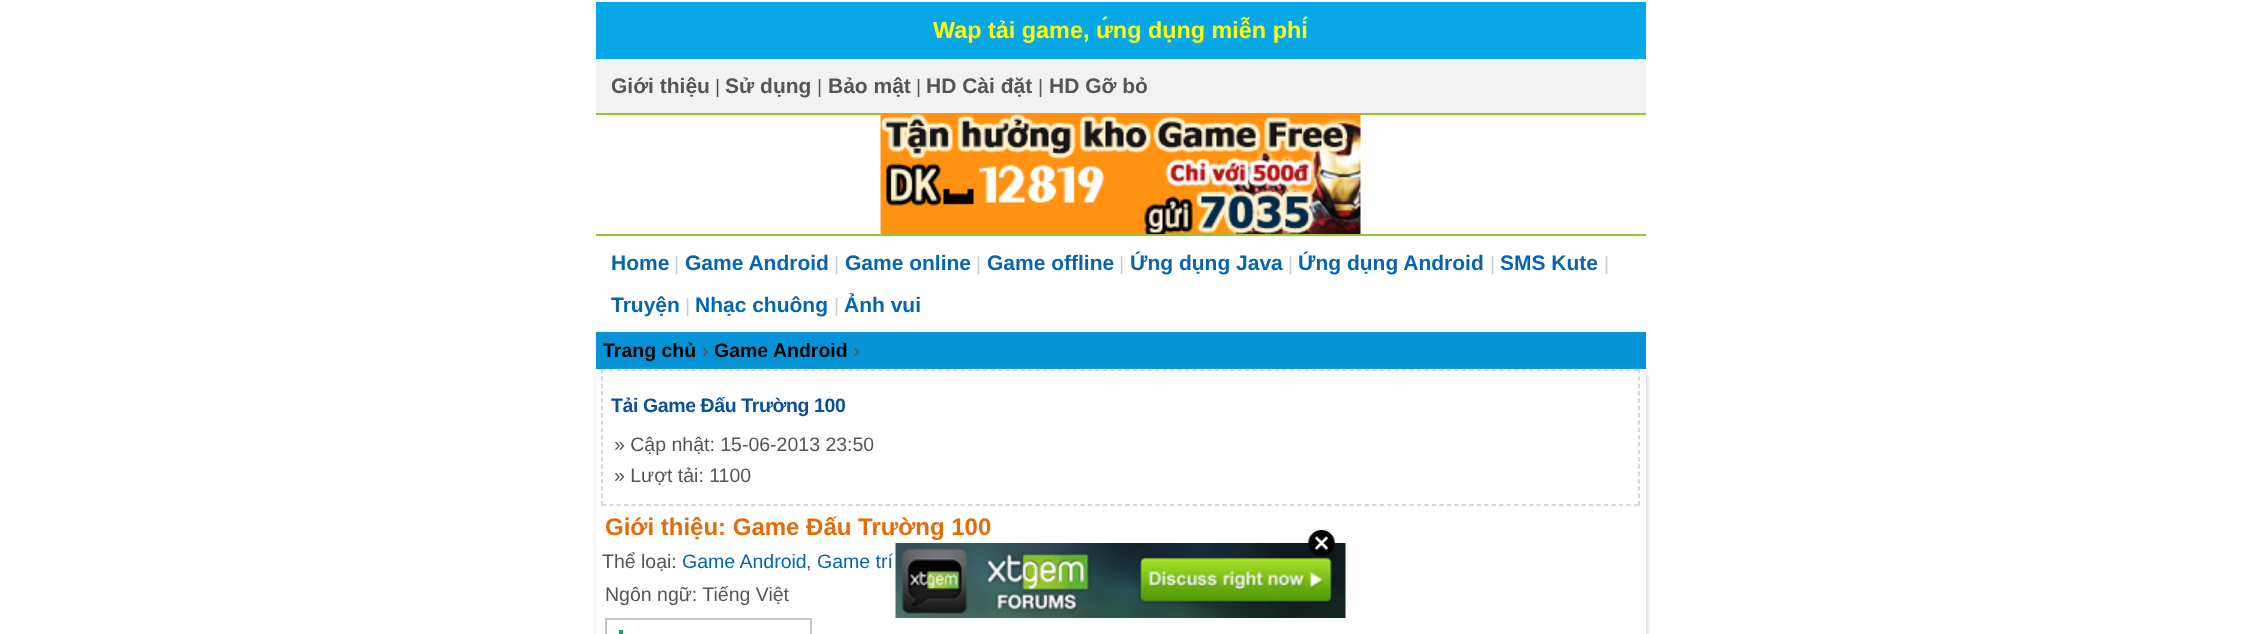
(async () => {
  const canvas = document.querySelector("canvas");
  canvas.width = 2241;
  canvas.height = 634;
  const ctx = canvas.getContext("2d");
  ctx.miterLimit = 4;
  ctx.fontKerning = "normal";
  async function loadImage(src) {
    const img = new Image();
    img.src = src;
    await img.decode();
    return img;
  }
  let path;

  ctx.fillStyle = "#ffffff";
  ctx.fillRect(0, 0, 2241, 634);
  for (const [x, y, w, h, color] of [
    [596, 2, 1050, 57, "#08a8e8"],
    [596, 59, 1050, 54, "#f2f2f2"],
    [596, 113, 1050, 2, "#95c631"],
  ]) {
    ctx.fillStyle = color;
    ctx.fillRect(x, y, w, h);
  }
  ctx.drawImage(await loadImage("img/1.png"), 880, 114, 481, 120);
  ctx.fillRect(596, 234, 1050, 2);
  ctx.fillStyle = "#0593d5";
  ctx.fillRect(596, 332, 1050, 37);
  ctx.fillStyle = "#cccccc";
  ctx.filter = "blur(2px)";
  ctx.beginPath();
  ctx.roundRect(597, 371, 1050, 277, 8);
  ctx.fill();
  ctx.filter = "none";
  ctx.fillStyle = "#ffffff";
  ctx.beginPath();
  ctx.roundRect(596, 369, 1050, 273, 8);
  ctx.fill();
  path = new Path2D("M601.5 370H1639.5");
  ctx.strokeStyle = "#cccccc";
  ctx.lineWidth = 1.5;
  ctx.setLineDash([4.5, 2.98]);
  ctx.stroke(path);
  path = new Path2D("M1639 369V505.5");
  ctx.setLineDash([4.5, 2.83]);
  ctx.stroke(path);
  path = new Path2D("M601.5 505H1639.5");
  ctx.setLineDash([4.5, 2.98]);
  ctx.stroke(path);
  path = new Path2D("M602 369V505.5");
  ctx.setLineDash([4.5, 2.83]);
  ctx.stroke(path);
  ctx.fillStyle = "#1a9d6c";
  ctx.fillRect(619, 630, 4, 4);
  ctx.strokeStyle = "#c4c5c5";
  ctx.lineWidth = 2;
  ctx.setLineDash([]);
  ctx.strokeRect(606, 619, 205, 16);
  ctx.drawImage(await loadImage("img/3.png"), 895, 543, 451, 75);
  ctx.drawImage(await loadImage("img/2.png"), 1308, 529, 27, 28);
  ctx.font = "bold 23.4px Liberation Sans";
  ctx.fillStyle = "#ffff00";
  ctx.fillText("Wap tải game, ứng dụng miễn phí", 933, 38);
  ctx.font = "bold 21px Liberation Sans";
  ctx.fillStyle = "#555555";
  ctx.fillText("Giới thiệu", 611, 93);
  ctx.font = "19.5px Liberation Sans";
  ctx.fillText("|", 715, 93);
  ctx.font = "bold 21px Liberation Sans";
  ctx.fillText("Sử dụng", 725, 93);
  ctx.font = "19.5px Liberation Sans";
  ctx.fillText("|", 817, 93);
  ctx.font = "bold 21px Liberation Sans";
  ctx.fillText("Bảo mật", 828, 93);
  ctx.font = "19.5px Liberation Sans";
  ctx.fillText("|", 916, 93);
  ctx.font = "bold 21px Liberation Sans";
  ctx.fillText("HD Cài đặt", 926, 93);
  ctx.font = "19.5px Liberation Sans";
  ctx.fillText("|", 1038, 93);
  ctx.font = "bold 21px Liberation Sans";
  ctx.fillText("HD Gỡ bỏ", 1049, 93);
  ctx.fillStyle = "#0565b2";
  ctx.fillText("Home", 611, 270);
  ctx.font = "19.5px Liberation Sans";
  ctx.fillStyle = "#cccccc";
  ctx.fillText("|", 674, 270);
  ctx.font = "bold 21px Liberation Sans";
  ctx.fillStyle = "#0565b2";
  ctx.fillText("Game Android", 685, 270);
  ctx.font = "19.5px Liberation Sans";
  ctx.fillStyle = "#cccccc";
  ctx.fillText("|", 834, 270);
  ctx.font = "bold 21px Liberation Sans";
  ctx.fillStyle = "#0565b2";
  ctx.fillText("Game online", 845, 270);
  ctx.font = "19.5px Liberation Sans";
  ctx.fillStyle = "#cccccc";
  ctx.fillText("|", 976, 270);
  ctx.font = "bold 21px Liberation Sans";
  ctx.fillStyle = "#0565b2";
  ctx.fillText("Game offline", 987, 270);
  ctx.font = "19.5px Liberation Sans";
  ctx.fillStyle = "#cccccc";
  ctx.fillText("|", 1119, 270);
  ctx.font = "bold 21px Liberation Sans";
  ctx.fillStyle = "#0565b2";
  ctx.fillText("Ứng dụng Java", 1130, 270);
  ctx.font = "19.5px Liberation Sans";
  ctx.fillStyle = "#cccccc";
  ctx.fillText("|", 1288, 270);
  ctx.font = "bold 21px Liberation Sans";
  ctx.fillStyle = "#0565b2";
  ctx.fillText("Ứng dụng Android", 1298, 270);
  ctx.font = "19.5px Liberation Sans";
  ctx.fillStyle = "#cccccc";
  ctx.fillText("|", 1490, 270);
  ctx.font = "bold 21px Liberation Sans";
  ctx.fillStyle = "#0565b2";
  ctx.fillText("SMS Kute", 1500, 270);
  ctx.font = "19.5px Liberation Sans";
  ctx.fillStyle = "#cccccc";
  ctx.fillText("|", 1604, 270);
  ctx.font = "bold 21px Liberation Sans";
  ctx.fillStyle = "#0565b2";
  ctx.fillText("Truyện", 611, 312);
  ctx.font = "19.5px Liberation Sans";
  ctx.fillStyle = "#cccccc";
  ctx.fillText("|", 685, 312);
  ctx.font = "bold 21px Liberation Sans";
  ctx.fillStyle = "#0565b2";
  ctx.fillText("Nhạc chuông", 695, 312);
  ctx.font = "19.5px Liberation Sans";
  ctx.fillStyle = "#cccccc";
  ctx.fillText("|", 834, 312);
  ctx.font = "bold 21px Liberation Sans";
  ctx.fillStyle = "#0565b2";
  ctx.fillText("Ảnh vui", 844, 312);
  ctx.font = "bold 19.5px Liberation Sans";
  ctx.fillStyle = "#000000";
  ctx.fillText("Trang chủ", 603, 357);
  ctx.font = "19.5px Liberation Sans";
  ctx.fillStyle = "#555555";
  ctx.fillText("›", 702, 357);
  ctx.font = "bold 19.5px Liberation Sans";
  ctx.fillStyle = "#000000";
  ctx.fillText("Game Android", 714, 357);
  ctx.font = "19.5px Liberation Sans";
  ctx.fillStyle = "#555555";
  ctx.fillText("›", 853, 357);
  ctx.letterSpacing = "-0.4px";
  ctx.font = "bold 19.5px Liberation Sans";
  ctx.fillStyle = "#085098";
  ctx.fillText("Tải Game Đấu Trường 100", 611, 412);
  ctx.letterSpacing = "0px";
  ctx.font = "19.5px Liberation Sans";
  ctx.fillStyle = "#555555";
  ctx.fillText("» Cập nhật: 15-06-2013 23:50", 614, 451);
  ctx.fillText("» Lượt tải: 1100", 614, 482);
  ctx.font = "bold 24px Liberation Sans";
  ctx.fillStyle = "#e36c09";
  ctx.fillText("Giới thiệu: Game Đấu Trường 100", 605, 535);
  ctx.font = "19.5px Liberation Sans";
  ctx.fillStyle = "#555555";
  ctx.fillText("Thể loại:", 602, 568);
  ctx.fillStyle = "#0565b2";
  ctx.fillText("Game Android", 682, 568);
  ctx.fillStyle = "#555555";
  ctx.fillText(",", 806, 568);
  ctx.fillStyle = "#0565b2";
  ctx.fillText("Game trí", 817, 568);
  ctx.fillStyle = "#555555";
  ctx.fillText("Ngôn ngữ: Tiếng Việt", 605, 601);
})();
